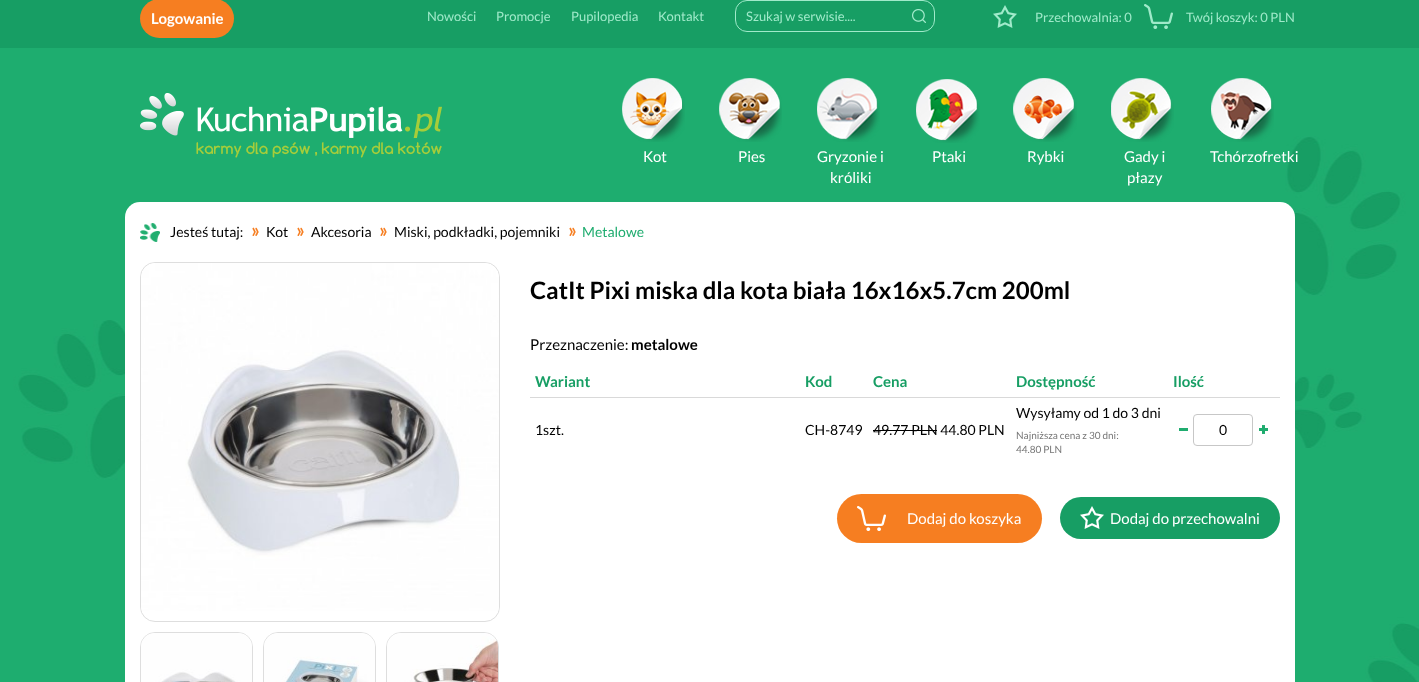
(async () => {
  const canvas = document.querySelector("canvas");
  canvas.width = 1419;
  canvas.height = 682;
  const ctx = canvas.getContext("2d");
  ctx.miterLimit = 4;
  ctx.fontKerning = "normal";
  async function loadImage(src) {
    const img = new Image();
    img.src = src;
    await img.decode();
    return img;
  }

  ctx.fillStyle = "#ffffff";
  ctx.fillRect(0, 0, 1419, 682);
  ctx.drawImage(await loadImage("img/1.png"), 0, 48, 1419, 634);
  ctx.fillStyle = "#179e64";
  ctx.fillRect(0, 0, 1419, 48);
  ctx.fillStyle = "#f67e21";
  ctx.beginPath();
  ctx.roundRect(140, -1, 94, 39, 19.5);
  ctx.fill();
  ctx.beginPath();
  ctx.roundRect(735.5, 0.5, 199, 31, 11.5);
  ctx.strokeStyle = "#a0eaca";
  ctx.stroke();
  ctx.drawImage(await loadImage("img/2.png"), 912, 9, 14, 14);
  ctx.drawImage(await loadImage("img/3.png"), 993, 5, 24, 23);
  ctx.drawImage(await loadImage("img/4.png"), 1144, 4, 29, 25);
  ctx.drawImage(await loadImage("img/5.png"), 140, 93, 302, 65);
  ctx.drawImage(await loadImage("img/6.png"), 622, 78, 63, 64);
  ctx.drawImage(await loadImage("img/7.png"), 719, 78, 63, 64);
  ctx.drawImage(await loadImage("img/8.png"), 817, 78, 63, 64);
  ctx.drawImage(await loadImage("img/9.png"), 916, 79, 64, 64);
  ctx.drawImage(await loadImage("img/10.png"), 1013, 78, 64, 64);
  ctx.drawImage(await loadImage("img/11.png"), 1111, 78, 63, 64);
  ctx.drawImage(await loadImage("img/12.png"), 1211, 78, 63, 64);
  ctx.fillStyle = "#ffffff";
  ctx.beginPath();
  ctx.roundRect(125, 202, 1170, 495, 15);
  ctx.fill();
  ctx.drawImage(await loadImage("img/13.png"), 140, 223, 20, 19);
  ctx.drawImage(await loadImage("img/14.png"), 252, 227, 7, 9);
  ctx.drawImage(await loadImage("img/14.png"), 297, 227, 7, 9);
  ctx.drawImage(await loadImage("img/14.png"), 380, 227, 7, 9);
  ctx.drawImage(await loadImage("img/14.png"), 569, 227, 7, 9);
  ctx.beginPath();
  ctx.roundRect(140.5, 262.5, 359, 359, 14.5);
  ctx.strokeStyle = "#dedede";
  ctx.stroke();
  ctx.drawImage(await loadImage("img/15.png"), 141, 263, 358, 348);
  ctx.beginPath();
  ctx.roundRect(140.5, 632.5, 112, 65, 14.5);
  ctx.stroke();
  ctx.drawImage(await loadImage("img/16.png"), 141, 633, 111, 49);
  ctx.beginPath();
  ctx.roundRect(263.5, 632.5, 112, 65, 14.5);
  ctx.stroke();
  ctx.drawImage(await loadImage("img/17.png"), 264, 633, 111, 49);
  ctx.beginPath();
  ctx.roundRect(386.5, 632.5, 112, 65, 14.5);
  ctx.stroke();
  ctx.drawImage(await loadImage("img/18.png"), 387, 633, 111, 49);
  for (const [x, y, w, h, color] of [
    [530, 397, 750, 1, "#d9d9d9"],
    [873, 430, 64, 1, "#000000"],
    [1179, 428, 9, 3, "#1fac6f"],
  ]) {
    ctx.fillStyle = color;
    ctx.fillRect(x, y, w, h);
  }
  ctx.beginPath();
  ctx.roundRect(1193.5, 414.5, 59, 31, 3.5);
  ctx.strokeStyle = "#c7c7c7";
  ctx.stroke();
  ctx.drawImage(await loadImage("img/19.png"), 1259, 425, 9, 9);
  ctx.fillStyle = "#f67e21";
  ctx.beginPath();
  ctx.roundRect(837, 494, 205, 49, 24.5);
  ctx.fill();
  ctx.drawImage(await loadImage("img/20.png"), 857, 506, 29, 25);
  ctx.fillStyle = "#179e64";
  ctx.beginPath();
  ctx.roundRect(1060, 497, 220, 42, 21);
  ctx.fill();
  ctx.drawImage(await loadImage("img/21.png"), 1080, 506, 24, 23);
  ctx.font = "bold 15px Lato";
  ctx.fillStyle = "#ffffff";
  ctx.fillText("Logowanie", 151, 24);
  ctx.font = "13px Lato";
  ctx.fillStyle = "#a0eaca";
  for (const [text, x, y] of [
    ["Nowości", 427, 21],
    ["Promocje", 496, 21],
    ["Pupilopedia", 571, 21],
    ["Kontakt", 658, 21],
    ["Szukaj w serwisie....", 746, 21],
    ["Przechowalnia: 0", 1035, 22],
    ["Twój koszyk: 0 PLN", 1186, 22],
  ]) {
    ctx.fillText(text, x, y);
  }
  ctx.font = "15px Lato";
  ctx.fillStyle = "#ffffff";
  for (const [text, x, y] of [
    ["Kot", 643, 162],
    ["Pies", 738, 162],
    ["Gryzonie i", 817, 162],
    ["króliki", 830, 183],
    ["Ptaki", 932, 162],
    ["Rybki", 1027, 162],
    ["Gady i", 1124, 162],
    ["płazy", 1127, 183],
    ["Tchórzofretki", 1210, 162],
  ]) {
    ctx.fillText(text, x, y);
  }
  ctx.font = "14px Lato";
  ctx.fillStyle = "#000000";
  for (const [text, x, y] of [
    ["Jesteś tutaj:", 170, 237],
    ["Kot", 266, 237],
    ["Akcesoria", 311, 237],
    ["Miski, podkładki, pojemniki", 394, 237],
  ]) {
    ctx.fillText(text, x, y);
  }
  ctx.fillStyle = "#1fac6f";
  ctx.fillText("Metalowe", 582, 237);
  ctx.font = "bold 24px Lato";
  ctx.fillStyle = "#000000";
  ctx.fillText("CatIt Pixi miska dla kota biała 16x16x5.7cm 200ml", 530, 299);
  ctx.font = "15px Lato";
  ctx.fillText("Przeznaczenie:", 530, 350);
  ctx.font = "bold 15px Lato";
  ctx.fillText("metalowe", 631, 350);
  ctx.fillStyle = "#179e64";
  for (const [text, x, y] of [
    ["Wariant", 535, 387],
    ["Kod", 805, 387],
    ["Cena", 873, 387],
    ["Dostępność", 1016, 387],
    ["Ilość", 1173, 387],
  ]) {
    ctx.fillText(text, x, y);
  }
  ctx.font = "14px Lato";
  ctx.fillStyle = "#000000";
  for (const [text, x, y] of [
    ["1szt.", 535, 435],
    ["CH-8749", 805, 435],
    ["49.77 PLN 44.80 PLN", 873, 435],
    ["Wysyłamy od 1 do 3 dni", 1016, 418],
  ]) {
    ctx.fillText(text, x, y);
  }
  ctx.font = "10px Lato";
  ctx.fillStyle = "#777777";
  ctx.fillText("Najniższa cena z 30 dni:", 1016, 439);
  ctx.fillText("44.80 PLN", 1016, 453);
  ctx.font = "14px Lato";
  ctx.fillStyle = "#000000";
  ctx.fillText("0", 1219, 435);
  ctx.font = "15px Lato";
  ctx.fillStyle = "#ffffff";
  ctx.fillText("Dodaj do koszyka", 907, 524);
  ctx.fillText("Dodaj do przechowalni", 1110, 524);
})();
